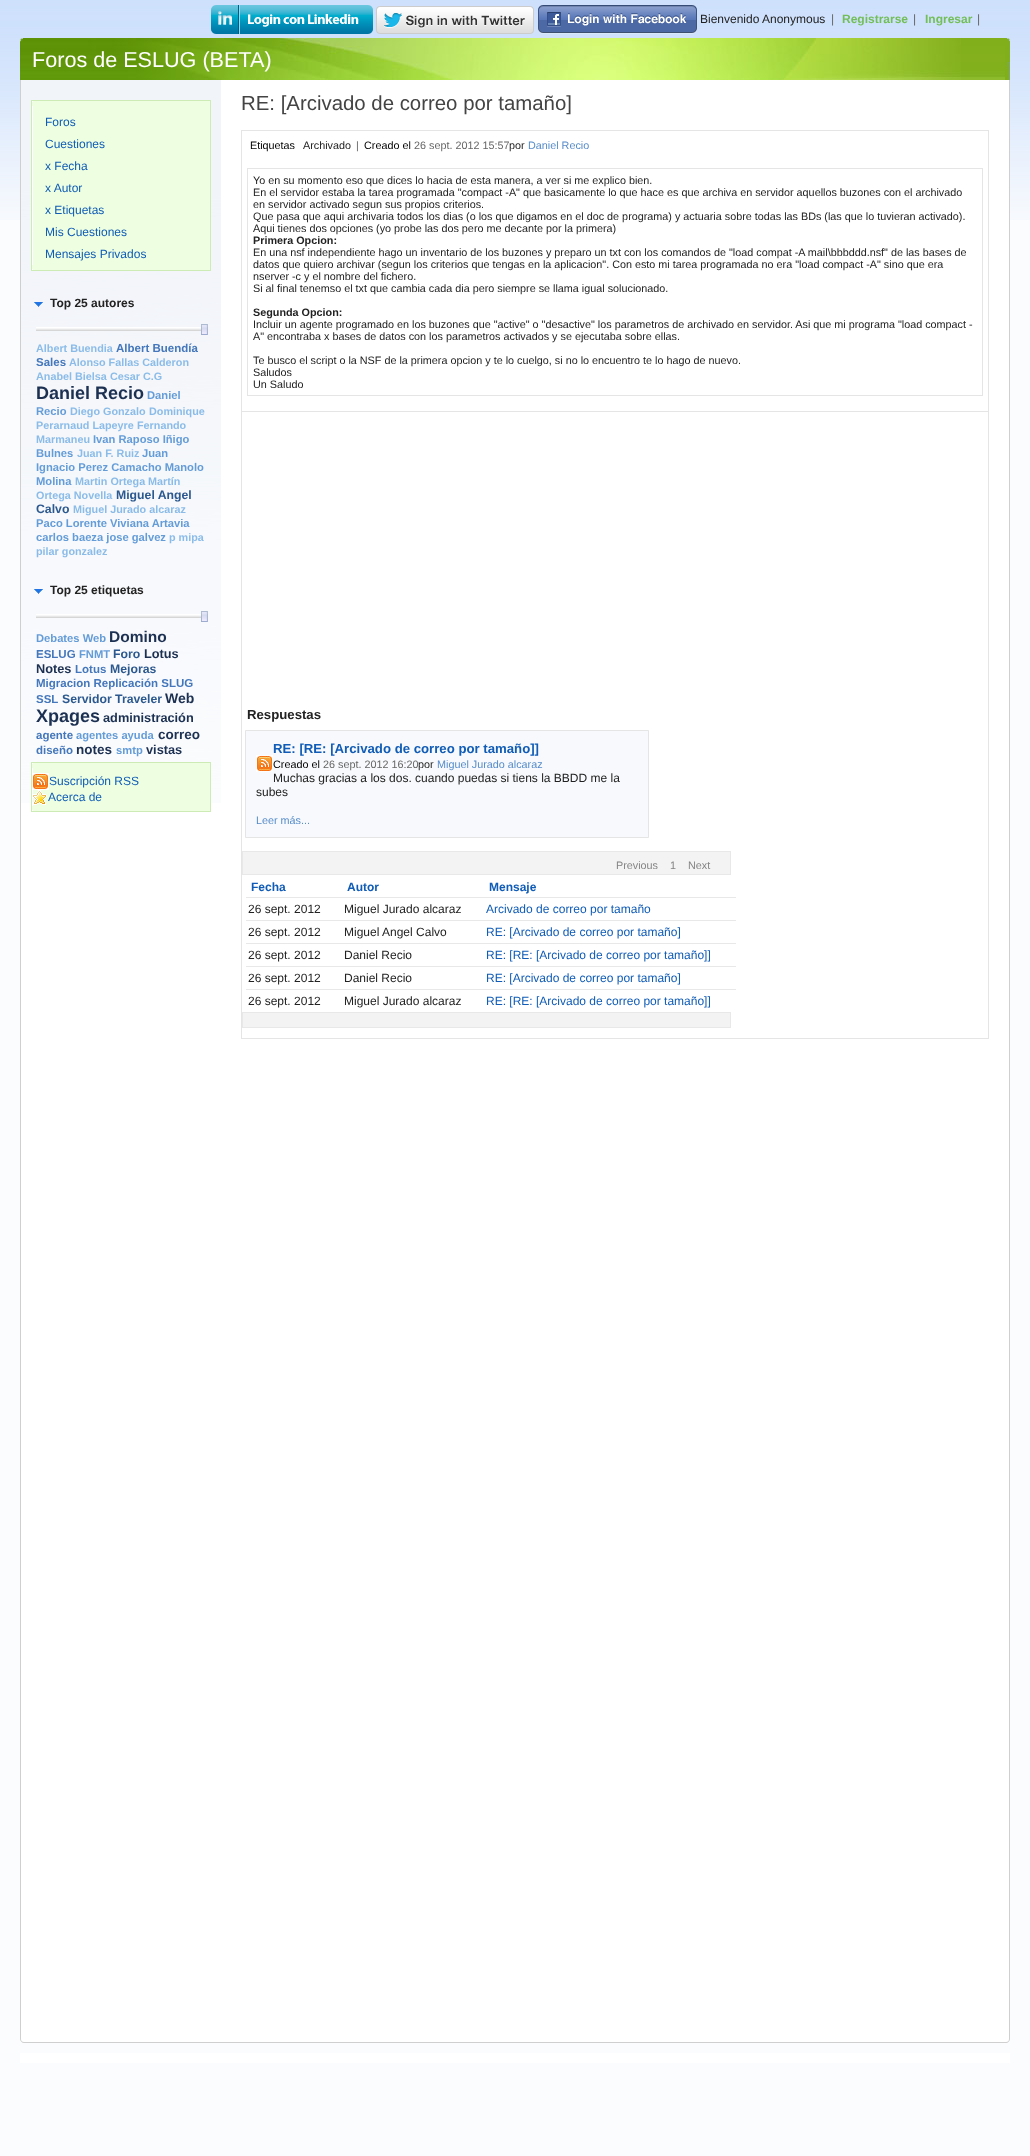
(async () => {
  const canvas = document.querySelector("canvas");
  canvas.width = 1030;
  canvas.height = 2156;
  const ctx = canvas.getContext("2d");
  ctx.miterLimit = 4;
  ctx.fontKerning = "normal";
  async function loadImage(src) {
    const img = new Image();
    img.src = src;
    await img.decode();
    return img;
  }
  let path;

  ctx.fillStyle = "#fbfcfd";
  ctx.fillRect(0, 0, 1030, 2156);
  ctx.drawImage(await loadImage("img/1.png"), 0, 0, 1030, 220);
  ctx.drawImage(await loadImage("img/2.png"), 211, 5, 162, 29);
  ctx.drawImage(await loadImage("img/3.png"), 376, 6, 158, 28);
  ctx.drawImage(await loadImage("img/4.png"), 538, 5, 159, 29);
  ctx.drawImage(await loadImage("img/5.png"), 961, 38, 44, 42);
  ctx.drawImage(await loadImage("img/6.png"), 1005, 38, 5, 42);
  ctx.drawImage(await loadImage("img/7.png"), 20, 38, 941, 42);
  ctx.fillStyle = "#ffffff";
  ctx.beginPath();
  ctx.roundRect(21, 80, 988, 1962, [0, 0, 3, 3]);
  ctx.fill();
  ctx.drawImage(await loadImage("img/8.png"), 21, 80, 200, 723);
  ctx.fillStyle = "#cfcfcf";
  path = new Path2D("M20 80H1010V2039C1010 2041 1008 2043 1006 2043H24C22 2043 20 2041 20 2039ZM21 80H1009V2039C1009 2041 1008 2042 1006 2042H24C22 2042 21 2041 21 2039Z");
  ctx.fill(path, "evenodd");
  ctx.fillStyle = "#eefee1";
  ctx.fillRect(32, 101, 178, 169);
  ctx.fillStyle = "#ffffff";
  ctx.fillRect(32, 101, 1, 1);
  ctx.strokeStyle = "#ccebb5";
  ctx.strokeRect(31.5, 100.5, 179, 170);
  ctx.fillRect(32, 269, 1, 1);
  ctx.fillRect(32, 106, 1, 159);
  ctx.drawImage(await loadImage("img/9.png"), 34, 302, 9, 5);
  ctx.drawImage(await loadImage("img/10.png"), 36, 327, 2, 4);
  ctx.drawImage(await loadImage("img/11.png"), 38, 327, 163, 4);
  ctx.drawImage(await loadImage("img/12.png"), 201, 324, 7, 11);
  ctx.drawImage(await loadImage("img/13.png"), 34, 589, 9, 5);
  ctx.drawImage(await loadImage("img/10.png"), 36, 614, 2, 4);
  ctx.drawImage(await loadImage("img/11.png"), 38, 614, 163, 4);
  ctx.drawImage(await loadImage("img/12.png"), 201, 611, 7, 11);
  ctx.fillStyle = "#eefee1";
  ctx.fillRect(32, 763, 178, 48);
  ctx.fillStyle = "#ffffff";
  ctx.fillRect(32, 763, 1, 1);
  ctx.strokeRect(31.5, 762.5, 179, 49);
  ctx.fillRect(32, 810, 1, 1);
  ctx.fillRect(32, 768, 1, 38);
  ctx.drawImage(await loadImage("img/14.png"), 33, 773, 16, 17);
  ctx.drawImage(await loadImage("img/15.png"), 33, 790, 14, 15);
  ctx.strokeStyle = "#e5e5e5";
  ctx.strokeRect(241.5, 130.5, 747, 908);
  ctx.strokeRect(247.5, 168.5, 735, 227);
  ctx.fillStyle = "#e5e5e5";
  ctx.fillRect(242, 411, 746, 1);
  ctx.fillStyle = "#f7f9fc";
  ctx.beginPath();
  ctx.rect(245.5, 730.5, 403, 107);
  ctx.fill();
  ctx.stroke();
  ctx.drawImage(await loadImage("img/16.png"), 256, 755, 17, 17);
  for (const [x, y, w, h, color] of [
    [243, 852, 487, 22, "#f3f3f3"],
    [242, 851, 489, 1, "#e8e8e9"],
    [242, 874, 471, 1, "#e8e8e9"],
    [242, 851, 1, 24, "#e8e8e9"],
    [730, 851, 1, 24, "#e8e8e9"],
    [713, 874, 18, 1, "#e8e8e9"],
    [246, 897, 490, 1, "#e8e8e9"],
    [246, 920, 490, 1, "#e8e8e9"],
    [246, 943, 490, 1, "#e8e8e9"],
    [246, 966, 490, 1, "#e8e8e9"],
    [246, 989, 490, 1, "#e8e8e9"],
    [243, 1013, 487, 14, "#f3f3f3"],
    [242, 1012, 489, 1, "#e8e8e9"],
    [242, 1027, 471, 1, "#e8e8e9"],
    [242, 1012, 1, 16, "#e8e8e9"],
    [730, 1012, 1, 16, "#e8e8e9"],
    [713, 1027, 18, 1, "#e8e8e9"],
    [20, 2053, 990, 10, "#ffffff"],
  ]) {
    ctx.fillStyle = color;
    ctx.fillRect(x, y, w, h);
  }
  ctx.font = "12px Liberation Sans";
  ctx.fillStyle = "#222222";
  ctx.fillText("Bienvenido", 700, 23);
  ctx.fillText("Anonymous", 762, 23);
  ctx.fillStyle = "#666666";
  ctx.fillText("|", 831, 23);
  ctx.font = "bold 12px Liberation Sans";
  ctx.fillStyle = "#73be59";
  ctx.fillText("Registrarse", 842, 23);
  ctx.font = "12px Liberation Sans";
  ctx.fillStyle = "#666666";
  ctx.fillText("|", 913, 23);
  ctx.font = "bold 12px Liberation Sans";
  ctx.fillStyle = "#73be59";
  ctx.fillText("Ingresar", 925, 23);
  ctx.font = "12px Liberation Sans";
  ctx.fillStyle = "#666666";
  ctx.fillText("|", 977, 23);
  ctx.font = "21.6px Liberation Sans";
  ctx.fillStyle = "#ffffff";
  ctx.fillText("Foros de ESLUG (BETA)", 32, 67);
  ctx.font = "12px Liberation Sans";
  ctx.fillStyle = "#105cb6";
  for (const [text, x, y] of [
    ["Foros", 45, 126],
    ["Cuestiones", 45, 148],
    ["x Fecha", 45, 170],
    ["x Autor", 45, 192],
    ["x Etiquetas", 45, 214],
    ["Mis Cuestiones", 45, 236],
    ["Mensajes Privados", 45, 258],
  ]) {
    ctx.fillText(text, x, y);
  }
  ctx.font = "bold 12px Liberation Sans";
  ctx.fillStyle = "#222222";
  ctx.fillText("Top 25 autores", 50, 307);
  ctx.font = "bold 10.8px Liberation Sans";
  ctx.fillStyle = "#8bbce8";
  ctx.fillText("Albert Buendia", 36, 352);
  ctx.font = "bold 11.5px Liberation Sans";
  ctx.fillStyle = "#4477bb";
  ctx.fillText("Albert Buendía", 116, 352);
  ctx.fillText("Sales", 36, 366);
  ctx.font = "bold 10.8px Liberation Sans";
  ctx.fillStyle = "#8bbce8";
  for (const [text, x, y] of [
    ["Alonso Fallas Calderon", 69, 366],
    ["Anabel Bielsa", 36, 380],
    ["Cesar C.G", 110, 380],
  ]) {
    ctx.fillText(text, x, y);
  }
  ctx.font = "bold 18px Liberation Sans";
  ctx.fillStyle = "#1c3052";
  ctx.fillText("Daniel Recio", 36, 399);
  ctx.font = "bold 11.2px Liberation Sans";
  ctx.fillStyle = "#649cd8";
  ctx.fillText("Daniel", 147, 399);
  ctx.fillText("Recio", 36, 415);
  ctx.font = "bold 10.8px Liberation Sans";
  ctx.fillStyle = "#8bbce8";
  for (const [text, x, y] of [
    ["Diego Gonzalo", 70, 415],
    ["Dominique", 149, 415],
    ["Perarnaud Lapeyre", 36, 429],
    ["Fernando", 137, 429],
    ["Marmaneu", 36, 443],
  ]) {
    ctx.fillText(text, x, y);
  }
  ctx.font = "bold 11.2px Liberation Sans";
  ctx.fillStyle = "#649cd8";
  ctx.fillText("Ivan Raposo Iñigo", 93, 443);
  ctx.fillText("Bulnes", 36, 457);
  ctx.font = "bold 10.8px Liberation Sans";
  ctx.fillStyle = "#8bbce8";
  ctx.fillText("Juan F. Ruiz", 77, 457);
  ctx.font = "bold 11.2px Liberation Sans";
  ctx.fillStyle = "#649cd8";
  for (const [text, x, y] of [
    ["Juan", 142, 457],
    ["Ignacio Perez Camacho Manolo", 36, 471],
    ["Molina", 36, 485],
  ]) {
    ctx.fillText(text, x, y);
  }
  ctx.font = "bold 10.8px Liberation Sans";
  ctx.fillStyle = "#8bbce8";
  for (const [text, x, y] of [
    ["Martin Ortega", 75, 485],
    ["Martín", 148, 485],
    ["Ortega Novella", 36, 499],
  ]) {
    ctx.fillText(text, x, y);
  }
  ctx.font = "bold 12.25px Liberation Sans";
  ctx.fillStyle = "#2b588e";
  ctx.fillText("Miguel Angel", 116, 499);
  ctx.fillText("Calvo", 36, 513);
  ctx.font = "bold 10.8px Liberation Sans";
  ctx.fillStyle = "#8bbce8";
  ctx.fillText("Miguel Jurado alcaraz", 73, 513);
  ctx.font = "bold 11.2px Liberation Sans";
  ctx.fillStyle = "#649cd8";
  ctx.fillText("Paco Lorente Viviana Artavia", 36, 527);
  ctx.fillText("carlos baeza jose galvez", 36, 541);
  ctx.font = "bold 10.8px Liberation Sans";
  ctx.fillStyle = "#8bbce8";
  ctx.fillText("p mipa", 169, 541);
  ctx.fillText("pilar gonzalez", 36, 555);
  ctx.font = "bold 12px Liberation Sans";
  ctx.fillStyle = "#222222";
  ctx.fillText("Top 25 etiquetas", 50, 594);
  ctx.font = "bold 11.2px Liberation Sans";
  ctx.fillStyle = "#649cd8";
  ctx.fillText("Debates Web", 36, 642);
  ctx.font = "bold 15.5px Liberation Sans";
  ctx.fillStyle = "#1c3052";
  ctx.fillText("Domino", 109, 642);
  ctx.font = "bold 11.5px Liberation Sans";
  ctx.fillStyle = "#4477bb";
  ctx.fillText("ESLUG", 36, 658);
  ctx.font = "bold 11.2px Liberation Sans";
  ctx.fillStyle = "#649cd8";
  ctx.fillText("FNMT", 79, 658);
  ctx.font = "bold 12.25px Liberation Sans";
  ctx.fillStyle = "#2b588e";
  ctx.fillText("Foro", 113, 658);
  ctx.font = "bold 12.75px Liberation Sans";
  ctx.fillStyle = "#1c3052";
  ctx.fillText("Lotus", 144, 658);
  ctx.fillText("Notes", 36, 673);
  ctx.font = "bold 11.5px Liberation Sans";
  ctx.fillStyle = "#4477bb";
  ctx.fillText("Lotus", 75, 673);
  ctx.font = "bold 12.25px Liberation Sans";
  ctx.fillStyle = "#2b588e";
  ctx.fillText("Mejoras", 110, 673);
  ctx.font = "bold 11.5px Liberation Sans";
  ctx.fillStyle = "#4477bb";
  ctx.fillText("Migracion Replicación SLUG", 36, 687);
  ctx.fillText("SSL", 36, 703);
  ctx.font = "bold 12.25px Liberation Sans";
  ctx.fillStyle = "#2b588e";
  ctx.fillText("Servidor Traveler", 62, 703);
  ctx.font = "bold 14px Liberation Sans";
  ctx.fillStyle = "#1c3052";
  ctx.fillText("Web", 165, 703);
  ctx.font = "bold 18px Liberation Sans";
  ctx.fillText("Xpages", 36, 722);
  ctx.font = "bold 12.75px Liberation Sans";
  ctx.fillText("administración", 103, 722);
  ctx.font = "bold 11.5px Liberation Sans";
  ctx.fillStyle = "#4477bb";
  ctx.fillText("agente", 36, 739);
  ctx.font = "bold 11.2px Liberation Sans";
  ctx.fillStyle = "#649cd8";
  ctx.fillText("agentes ayuda", 76, 739);
  ctx.font = "bold 13.5px Liberation Sans";
  ctx.fillStyle = "#1c3052";
  ctx.fillText("correo", 158, 739);
  ctx.font = "bold 11.5px Liberation Sans";
  ctx.fillStyle = "#4477bb";
  ctx.fillText("diseño", 36, 754);
  ctx.font = "bold 13.5px Liberation Sans";
  ctx.fillStyle = "#1c3052";
  ctx.fillText("notes", 76, 754);
  ctx.font = "bold 11.2px Liberation Sans";
  ctx.fillStyle = "#649cd8";
  ctx.fillText("smtp", 116, 754);
  ctx.font = "bold 12.75px Liberation Sans";
  ctx.fillStyle = "#1c3052";
  ctx.fillText("vistas", 146, 754);
  ctx.font = "12px Liberation Sans";
  ctx.fillStyle = "#105cb6";
  ctx.fillText("Suscripción RSS", 49, 785);
  ctx.fillText("Acerca de", 48, 801);
  ctx.font = "20.4px Liberation Sans";
  ctx.fillStyle = "#444444";
  ctx.fillText("RE: [Arcivado de correo por tamaño]", 241, 110);
  ctx.font = "10.8px Liberation Sans";
  ctx.fillStyle = "#000000";
  ctx.fillText("Etiquetas", 250, 149);
  ctx.fillStyle = "#222222";
  ctx.fillText("Archivado", 303, 149);
  ctx.fillStyle = "#666666";
  ctx.fillText("|", 356, 149);
  ctx.fillStyle = "#000000";
  ctx.fillText("Creado el", 364, 149);
  ctx.fillStyle = "#666666";
  ctx.fillText("26 sept. 2012 15:57", 414, 149);
  ctx.fillStyle = "#222222";
  ctx.fillText("por", 509, 149);
  ctx.fillStyle = "#578cca";
  ctx.fillText("Daniel Recio", 528, 149);
  ctx.fillStyle = "#222222";
  for (const [text, x, y] of [
    ["Yo en su momento eso que dices lo hacia de esta manera, a ver si me explico bien.", 253, 184],
    ["En el servidor estaba la tarea programada \"compact -A\" que basicamente lo que hace es que archiva en servidor aquellos buzones con el archivado", 253, 196],
    ["en servidor activado segun sus propios criterios.", 253, 208],
    ["Que pasa que aqui archivaria todos los dias (o los que digamos en el doc de programa) y actuaria sobre todas las BDs (las que lo tuvieran activado).", 253, 220],
    ["Aqui tienes dos opciones (yo probe las dos pero me decante por la primera)", 253, 232],
  ]) {
    ctx.fillText(text, x, y);
  }
  ctx.font = "bold 10.8px Liberation Sans";
  ctx.fillText("Primera Opcion:", 253, 244);
  ctx.font = "10.8px Liberation Sans";
  for (const [text, x, y] of [
    ["En una nsf independiente hago un inventario de los buzones y preparo un txt con los comandos de \"load compat -A mail\\bbbddd.nsf\" de las bases de", 253, 256],
    ["datos que quiero archivar (segun los criterios que tengas en la aplicacion\". Con esto mi tarea programada no era \"load compact -A\" sino que era", 253, 268],
    ["nserver -c y el nombre del fichero.", 253, 280],
    ["Si al final tenemso el txt que cambia cada dia pero siempre se llama igual solucionado.", 253, 292],
  ]) {
    ctx.fillText(text, x, y);
  }
  ctx.font = "bold 10.8px Liberation Sans";
  ctx.fillText("Segunda Opcion:", 253, 316);
  ctx.font = "10.8px Liberation Sans";
  for (const [text, x, y] of [
    ["Incluir un agente programado en los buzones que \"active\" o \"desactive\" los parametros de archivado en servidor. Asi que mi programa \"load compact -", 253, 328],
    ["A\" encontraba x bases de datos con los parametros activados y se ejecutaba sobre ellas.", 253, 340],
    ["Te busco el script o la NSF de la primera opcion y te lo cuelgo, si no lo encuentro te lo hago de nuevo.", 253, 364],
    ["Saludos", 253, 376],
    ["Un Saludo", 253, 388],
  ]) {
    ctx.fillText(text, x, y);
  }
  ctx.font = "bold 13.2px Liberation Sans";
  ctx.fillText("Respuestas", 247, 719);
  ctx.fillStyle = "#105cb6";
  ctx.fillText("RE: [RE: [Arcivado de correo por tamaño]]", 273, 753);
  ctx.font = "10.8px Liberation Sans";
  ctx.fillStyle = "#000000";
  ctx.fillText("Creado el", 273, 768);
  ctx.fillStyle = "#666666";
  ctx.fillText("26 sept. 2012 16:20", 323, 768);
  ctx.fillStyle = "#222222";
  ctx.fillText("por", 418, 768);
  ctx.fillStyle = "#578cca";
  ctx.fillText("Miguel Jurado alcaraz", 437, 768);
  ctx.font = "12px Liberation Sans";
  ctx.fillStyle = "#222222";
  ctx.fillText("Muchas gracias a los dos. cuando puedas si tiens la BBDD me la", 273, 782);
  ctx.fillText("subes", 256, 796);
  ctx.font = "10.8px Liberation Sans";
  ctx.fillStyle = "#578cca";
  ctx.fillText("Leer más...", 256, 824);
  ctx.fillStyle = "#848484";
  for (const [text, x, y] of [
    ["Previous", 616, 869],
    ["1", 670, 869],
    ["Next", 688, 869],
  ]) {
    ctx.fillText(text, x, y);
  }
  ctx.font = "bold 12px Liberation Sans";
  ctx.fillStyle = "#105cb6";
  for (const [text, x, y] of [
    ["Fecha", 251, 891],
    ["Autor", 347, 891],
    ["Mensaje", 489, 891],
  ]) {
    ctx.fillText(text, x, y);
  }
  ctx.font = "12px Liberation Sans";
  ctx.fillStyle = "#222222";
  ctx.fillText("26 sept. 2012", 248, 913);
  ctx.fillText("Miguel Jurado alcaraz", 344, 913);
  ctx.fillStyle = "#105cb6";
  ctx.fillText("Arcivado de correo por tamaño", 486, 913);
  ctx.fillStyle = "#222222";
  ctx.fillText("26 sept. 2012", 248, 936);
  ctx.fillText("Miguel Angel Calvo", 344, 936);
  ctx.fillStyle = "#105cb6";
  ctx.fillText("RE: [Arcivado de correo por tamaño]", 486, 936);
  ctx.fillStyle = "#222222";
  ctx.fillText("26 sept. 2012", 248, 959);
  ctx.fillText("Daniel Recio", 344, 959);
  ctx.fillStyle = "#105cb6";
  ctx.fillText("RE: [RE: [Arcivado de correo por tamaño]]", 486, 959);
  ctx.fillStyle = "#222222";
  ctx.fillText("26 sept. 2012", 248, 982);
  ctx.fillText("Daniel Recio", 344, 982);
  ctx.fillStyle = "#105cb6";
  ctx.fillText("RE: [Arcivado de correo por tamaño]", 486, 982);
  ctx.fillStyle = "#222222";
  ctx.fillText("26 sept. 2012", 248, 1005);
  ctx.fillText("Miguel Jurado alcaraz", 344, 1005);
  ctx.fillStyle = "#105cb6";
  ctx.fillText("RE: [RE: [Arcivado de correo por tamaño]]", 486, 1005);
})();
